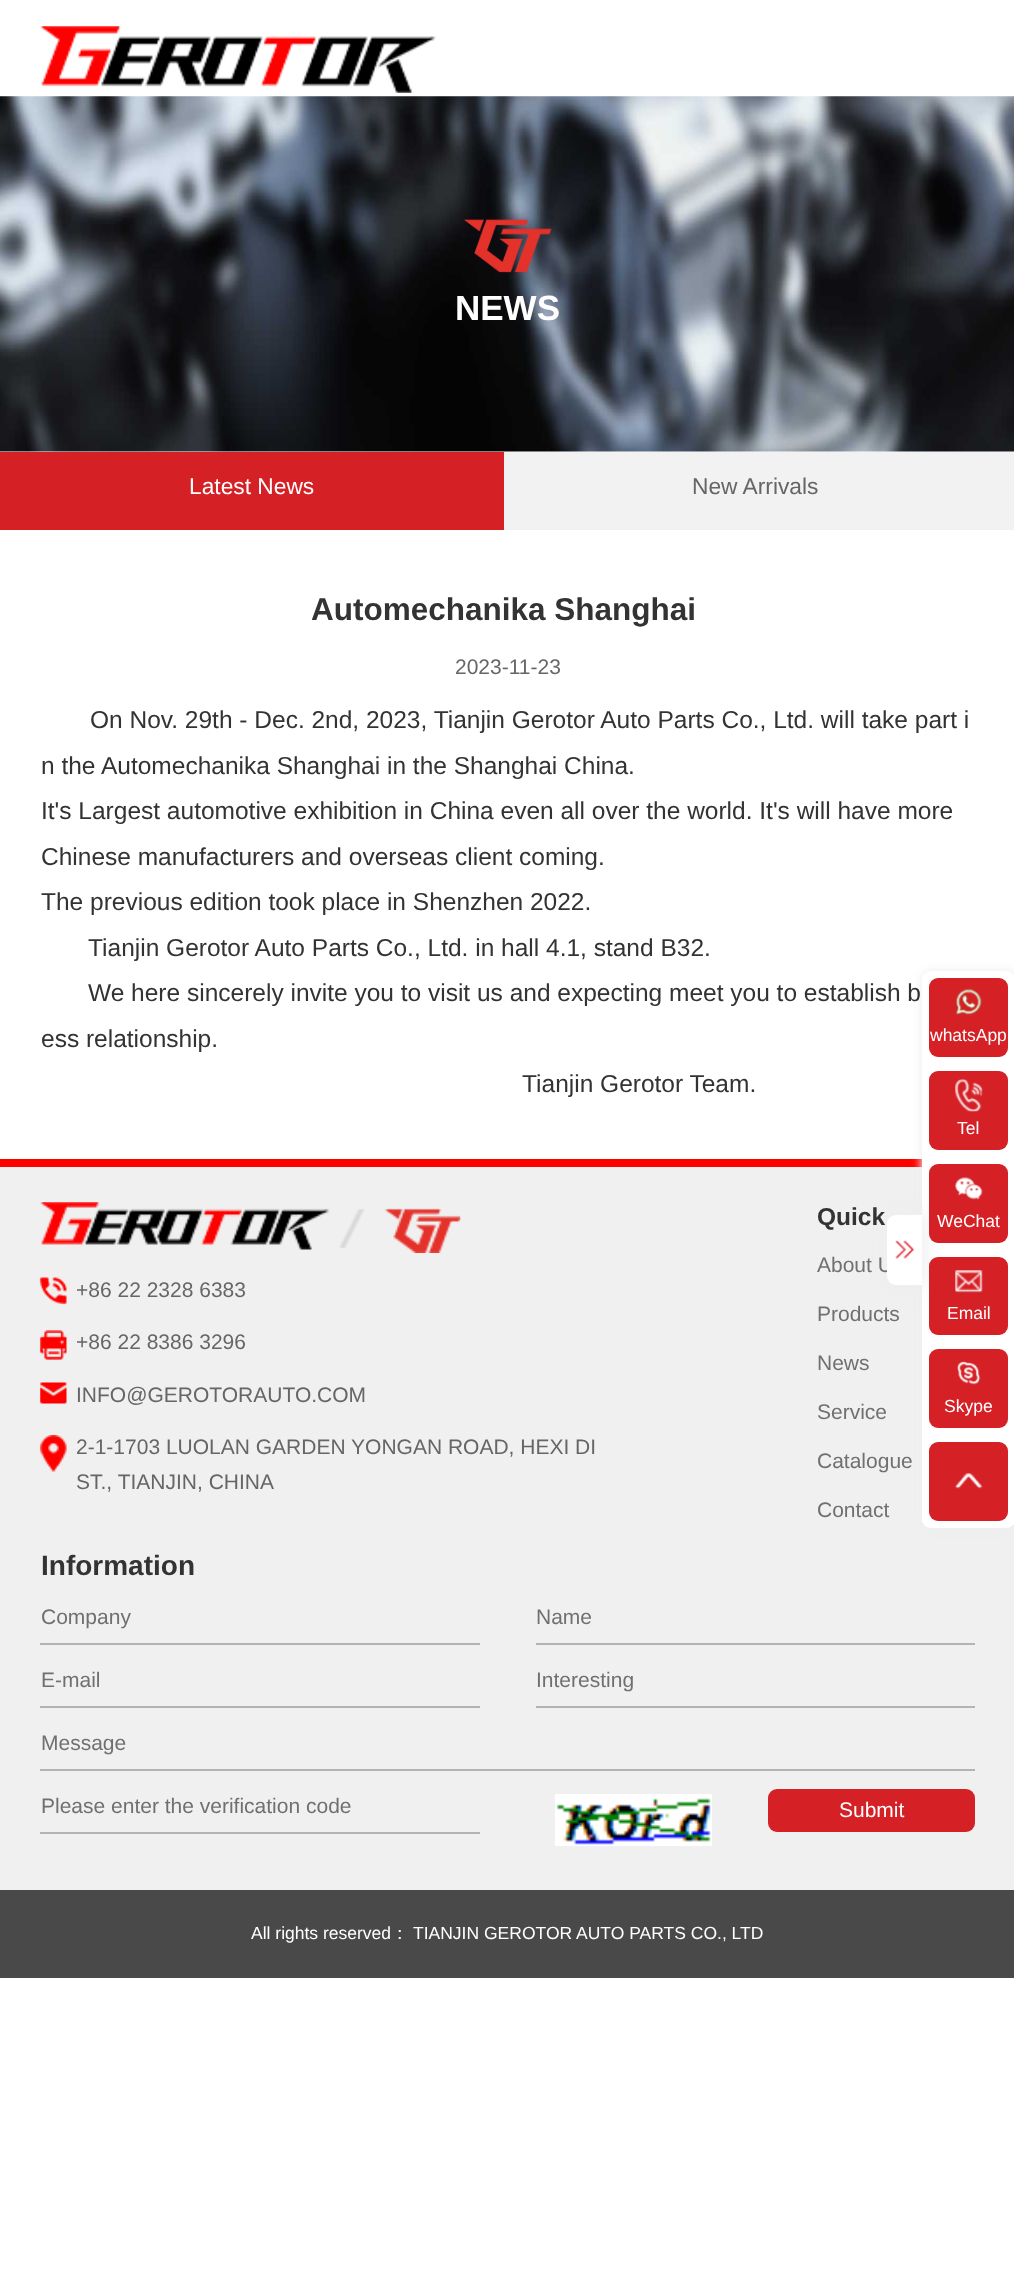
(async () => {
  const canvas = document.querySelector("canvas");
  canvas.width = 1014;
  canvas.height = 2270;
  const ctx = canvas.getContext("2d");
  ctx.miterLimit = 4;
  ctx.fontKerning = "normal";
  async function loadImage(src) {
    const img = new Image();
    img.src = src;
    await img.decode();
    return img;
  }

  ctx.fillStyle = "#ffffff";
  ctx.fillRect(0, 0, 1014, 2270);
  ctx.drawImage(await loadImage("img/1.png"), 40, 26, 396, 67);
  ctx.drawImage(await loadImage("img/2.png"), 0, 96, 1014, 356);
  ctx.drawImage(await loadImage("img/3.png"), 463, 219, 89, 54);
  for (const [x, y, w, h, color] of [
    [504, 452, 510, 78, "#f2f2f3"],
    [0, 452, 504, 78, "#d52026"],
    [0, 1167, 1014, 723, "#f0f0f0"],
    [0, 1159, 922, 8, "#ff0000"],
  ]) {
    ctx.fillStyle = color;
    ctx.fillRect(x, y, w, h);
  }
  ctx.drawImage(await loadImage("img/4.png"), 40, 1202, 421, 51);
  ctx.drawImage(await loadImage("img/5.png"), 40, 1277, 27, 27);
  ctx.drawImage(await loadImage("img/6.png"), 40, 1330, 27, 30);
  ctx.drawImage(await loadImage("img/7.png"), 40, 1382, 27, 22);
  ctx.drawImage(await loadImage("img/8.png"), 40, 1435, 27, 37);
  for (const [x, y, w, h, color] of [
    [40, 1643, 440, 2, "#b3b3b3"],
    [536, 1643, 439, 2, "#b3b3b3"],
    [40, 1706, 440, 2, "#b3b3b3"],
    [536, 1706, 439, 2, "#b3b3b3"],
    [40, 1769, 935, 2, "#b3b3b3"],
    [40, 1832, 440, 2, "#b3b3b3"],
  ]) {
    ctx.fillStyle = color;
    ctx.fillRect(x, y, w, h);
  }
  ctx.drawImage(await loadImage("img/9.png"), 555, 1794, 157, 52);
  ctx.fillStyle = "#d52026";
  ctx.beginPath();
  ctx.roundRect(768, 1789, 207, 43, 9);
  ctx.fill();
  ctx.fillStyle = "#494949";
  ctx.fillRect(0, 1890, 1014, 88);
  ctx.fillStyle = "#eeeeee";
  ctx.filter = "blur(4.5px)";
  ctx.beginPath();
  ctx.roundRect(921, 970, 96, 560, 11);
  ctx.fill();
  ctx.filter = "none";
  ctx.fillStyle = "#ffffff";
  ctx.beginPath();
  ctx.roundRect(922, 971, 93, 557, 9);
  ctx.fill();
  ctx.fillStyle = "#eeeeee";
  ctx.filter = "blur(9px)";
  ctx.beginPath();
  ctx.roundRect(884, 1211, 42, 77, 12);
  ctx.fill();
  ctx.filter = "none";
  ctx.fillStyle = "#d52026";
  ctx.beginPath();
  ctx.roundRect(929, 978, 79, 79, 9);
  ctx.fill();
  ctx.drawImage(await loadImage("img/11.png"), 956, 988, 26, 27);
  ctx.beginPath();
  ctx.roundRect(929, 1071, 79, 79, 9);
  ctx.fill();
  ctx.drawImage(await loadImage("img/12.png"), 955, 1079, 28, 33);
  ctx.beginPath();
  ctx.roundRect(929, 1164, 79, 79, 9);
  ctx.fill();
  ctx.drawImage(await loadImage("img/13.png"), 955, 1177, 28, 23);
  ctx.beginPath();
  ctx.roundRect(929, 1257, 79, 78, 9);
  ctx.fill();
  ctx.drawImage(await loadImage("img/14.png"), 955, 1270, 28, 23);
  ctx.beginPath();
  ctx.roundRect(929, 1349, 79, 79, 9);
  ctx.fill();
  ctx.drawImage(await loadImage("img/15.png"), 957, 1361, 24, 24);
  ctx.fillStyle = "#ffffff";
  ctx.beginPath();
  ctx.roundRect(922, 1435, 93, 93, 9);
  ctx.fill();
  ctx.fillStyle = "#d52026";
  ctx.beginPath();
  ctx.roundRect(929, 1442, 79, 79, 9);
  ctx.fill();
  ctx.drawImage(await loadImage("img/16.png"), 955, 1473, 28, 16);
  ctx.font = "bold 35px Liberation Sans";
  ctx.fillStyle = "#ffffff";
  ctx.fillText("NEWS", 455, 320);
  ctx.font = "22.75px Liberation Sans";
  ctx.fillText("Latest News", 189, 494);
  ctx.fillStyle = "#666666";
  ctx.fillText("New Arrivals", 692, 494);
  ctx.font = "bold 31.5px Liberation Sans";
  ctx.fillStyle = "#333333";
  ctx.fillText("Automechanika Shanghai", 311, 620);
  ctx.font = "21px Liberation Sans";
  ctx.fillStyle = "#666666";
  ctx.fillText("2023-11-23", 455, 674);
  ctx.font = "24.5px Liberation Sans";
  ctx.fillStyle = "#333333";
  for (const [text, x, y] of [
    ["On Nov. 29th - Dec. 2nd, 2023, Tianjin Gerotor Auto Parts Co., Ltd. will take part i", 90, 728],
    ["n the Automechanika Shanghai in the Shanghai China.", 41, 774],
    ["It's Largest automotive exhibition in China even all over the world. It's will have more", 41, 819],
    ["Chinese manufacturers and overseas client coming.", 41, 865],
    ["The previous edition took place in Shenzhen 2022.", 41, 910],
    ["Tianjin Gerotor Auto Parts Co., Ltd. in hall 4.1, stand B32.", 88, 956],
    ["We here sincerely invite you to visit us and expecting meet you to establish b", 88, 1001],
    ["ess relationship.", 41, 1047],
    ["Tianjin Gerotor Team.", 522, 1092],
  ]) {
    ctx.fillText(text, x, y);
  }
  ctx.font = "21px Liberation Sans";
  ctx.fillStyle = "#666666";
  for (const [text, x, y] of [
    ["+86 22 2328 6383", 76, 1297],
    ["+86 22 8386 3296", 76, 1349],
    ["INFO@GEROTORAUTO.COM", 76, 1402],
    ["2-1-1703 LUOLAN GARDEN YONGAN ROAD, HEXI DI", 76, 1454],
    ["ST., TIANJIN, CHINA", 76, 1489],
  ]) {
    ctx.fillText(text, x, y);
  }
  ctx.font = "bold 24.5px Liberation Sans";
  ctx.fillStyle = "#333333";
  ctx.fillText("Quick", 817, 1225);
  ctx.font = "21px Liberation Sans";
  ctx.fillStyle = "#707070";
  for (const [text, x, y] of [
    ["About U", 817, 1272],
    ["Products", 817, 1321],
    ["News", 817, 1370],
    ["Service", 817, 1419],
    ["Catalogue", 817, 1468],
    ["Contact", 817, 1517],
  ]) {
    ctx.fillText(text, x, y);
  }
  ctx.font = "bold 28px Liberation Sans";
  ctx.fillStyle = "#333333";
  ctx.fillText("Information", 41, 1575);
  ctx.font = "21px Liberation Sans";
  ctx.fillStyle = "#707070";
  for (const [text, x, y] of [
    ["Company", 41, 1624],
    ["Name", 536, 1624],
    ["E-mail", 41, 1687],
    ["Interesting", 536, 1687],
    ["Message", 41, 1750],
    ["Please enter the verification code", 41, 1813],
  ]) {
    ctx.fillText(text, x, y);
  }
  ctx.fillStyle = "#ffffff";
  ctx.fillText("Submit", 839, 1817);
  ctx.font = "17.5px Liberation Sans";
  ctx.fillText("All rights reserved", 251, 1939);
  ctx.font = "500 17.5px WenQuanYi Zen Hei";
  ctx.fillText("：", 391, 1939);
  ctx.font = "17.5px Liberation Sans";
  ctx.fillText("TIANJIN GEROTOR AUTO PARTS CO., LTD", 413, 1939);
  ctx.beginPath();
  ctx.roundRect(887, 1215, 35, 70, [9, 0, 0, 9]);
  ctx.fill();
  ctx.drawImage(await loadImage("img/10.png"), 895, 1240, 20, 19);
  for (const [text, x, y] of [
    ["whatsApp", 930, 1041],
    ["Tel", 957, 1134],
    ["WeChat", 937, 1227],
    ["Email", 947, 1319],
    ["Skype", 944, 1412],
  ]) {
    ctx.fillText(text, x, y);
  }
})();
